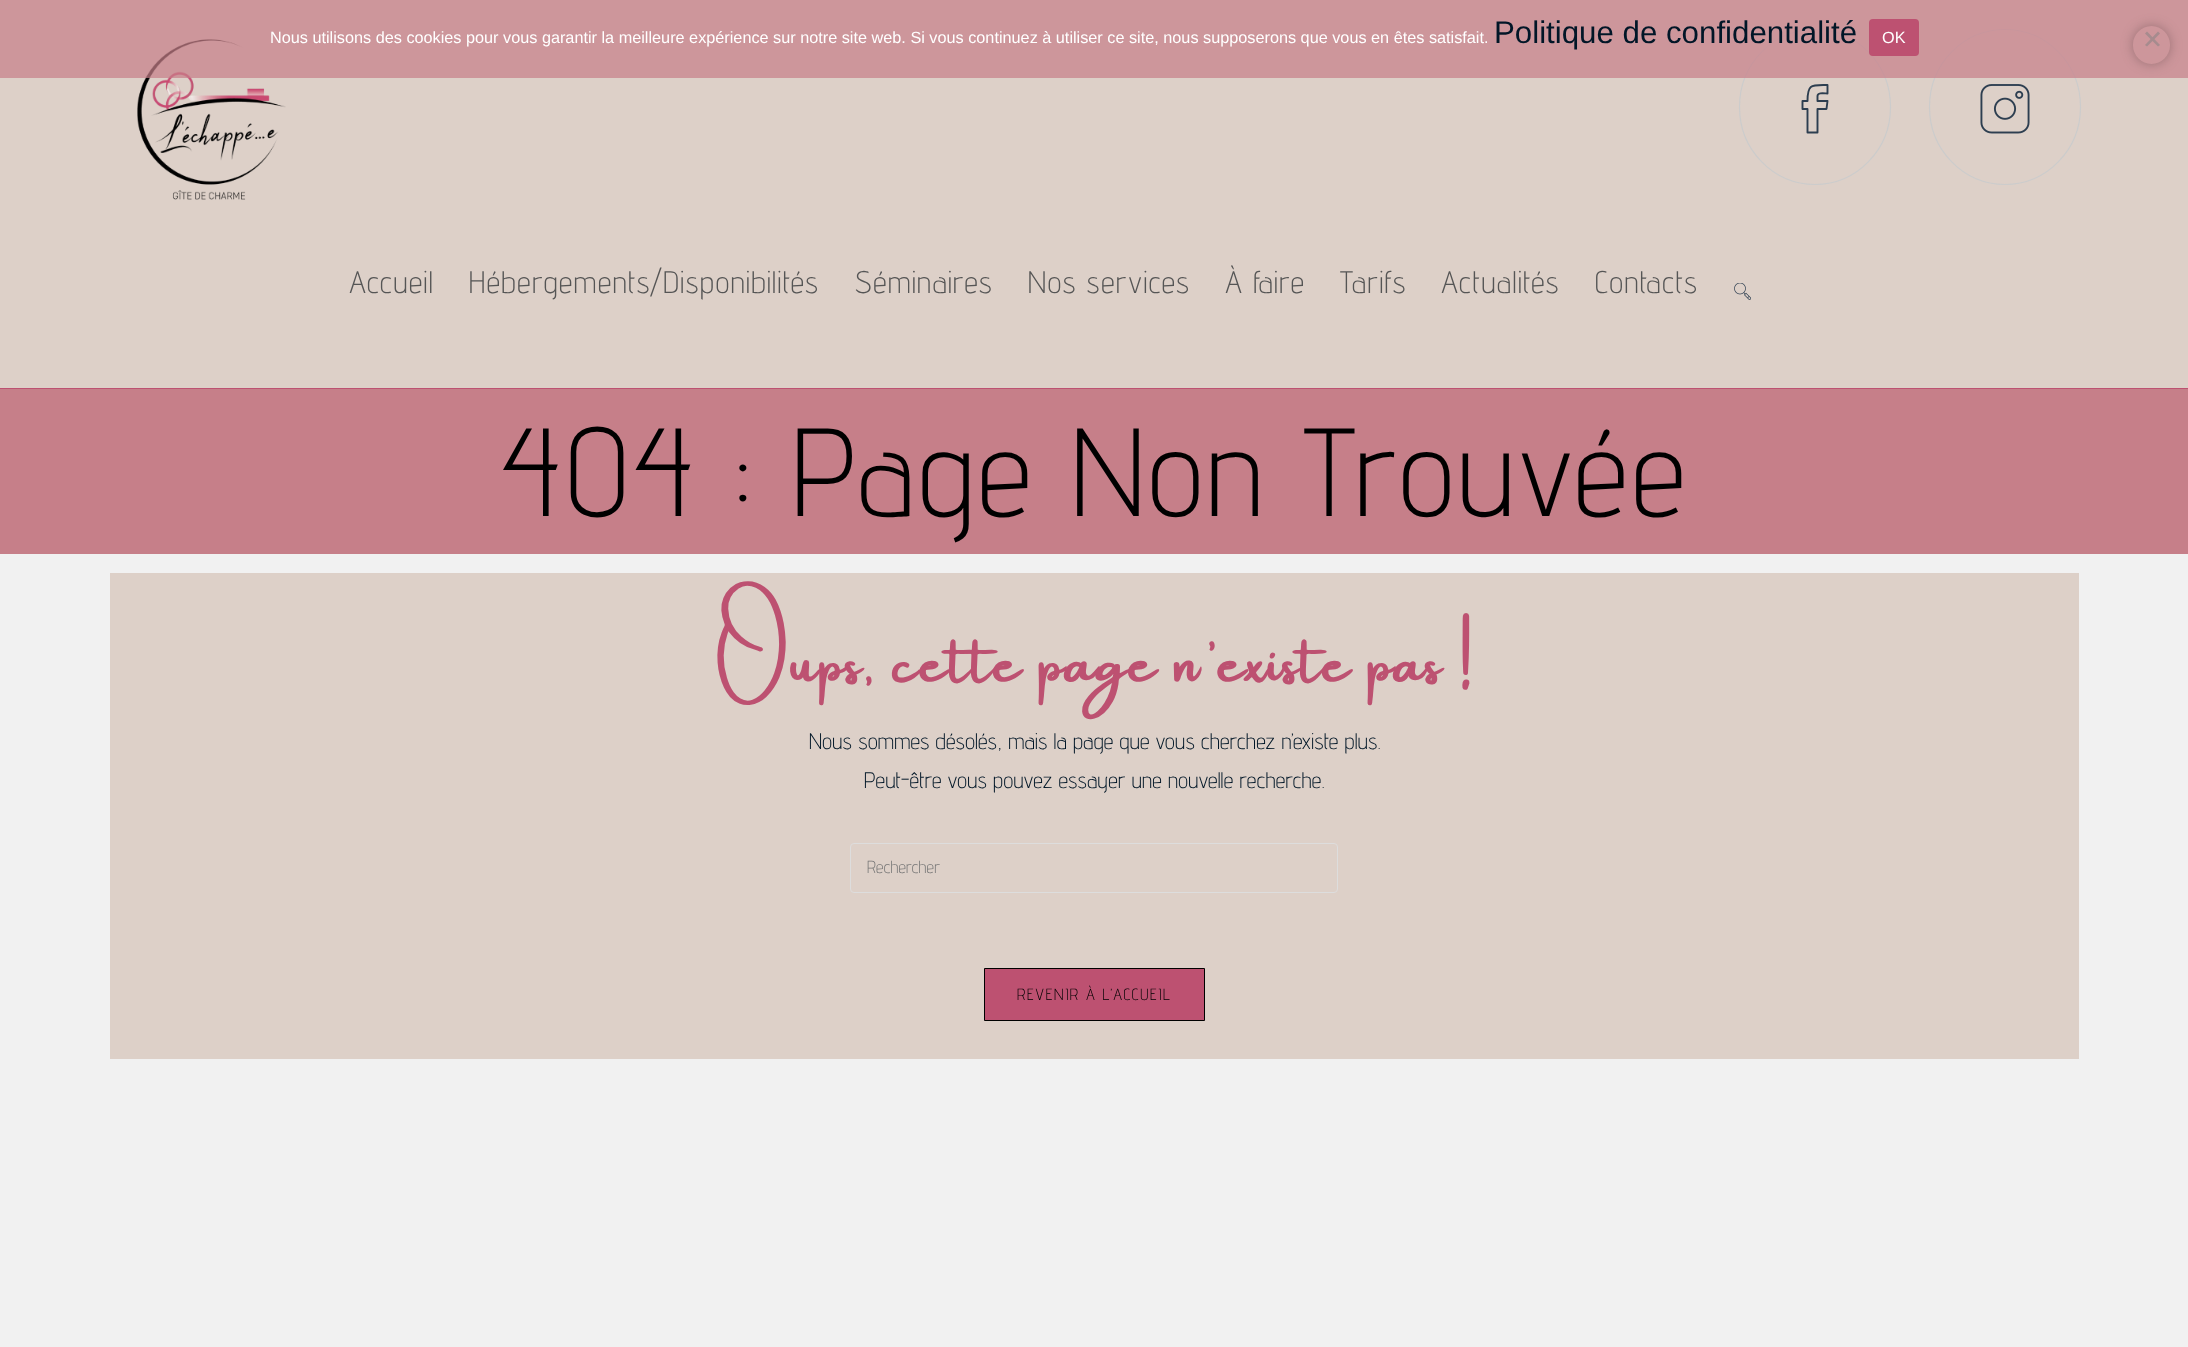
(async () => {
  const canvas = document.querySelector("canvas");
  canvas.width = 2188;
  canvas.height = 1347;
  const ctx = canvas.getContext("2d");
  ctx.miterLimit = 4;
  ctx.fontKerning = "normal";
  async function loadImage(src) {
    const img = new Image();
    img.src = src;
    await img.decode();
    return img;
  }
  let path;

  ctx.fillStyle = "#f1f1f1";
  ctx.fillRect(0, 0, 2188, 1347);
  ctx.fillStyle = "#ddd0c8";
  ctx.fillRect(0, 0, 2188, 388);
  ctx.drawImage(await loadImage("img/1.png"), 137, 39, 149, 161);
  path = new Path2D("M1815 29.5C1857 29.5 1890.5 64 1890.5 107C1890.5 149.5 1857 184.5 1815 184.5C1773 184.5 1739.5 149.5 1739.5 107C1739.5 64 1773 29.5 1815 29.5Z");
  ctx.strokeStyle = "#cccccc";
  ctx.lineWidth = 1.2;
  ctx.stroke(path);
  path = new Path2D("M2005 29.5C2047 29.5 2080.5 64 2080.5 107C2080.5 149.5 2047 184.5 2005 184.5C1963 184.5 1929.5 149.5 1929.5 107C1929.5 64 1963 29.5 2005 29.5Z");
  ctx.stroke(path);
  ctx.fillStyle = "rgba(198, 127, 137, 0.71)";
  ctx.fillRect(0, 0, 2188, 78);
  ctx.fillStyle = "#bd5171";
  ctx.beginPath();
  ctx.roundRect(1869, 19, 50, 37, 4);
  ctx.fill();
  ctx.save();
  path = new Path2D("M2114 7H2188V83H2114ZM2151.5 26C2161.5 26 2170 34.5 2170 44.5V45.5C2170 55.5 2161.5 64 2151.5 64C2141.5 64 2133 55.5 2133 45.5V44.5C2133 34.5 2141.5 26 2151.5 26Z");
  ctx.clip(path, "evenodd");
  ctx.fillStyle = "rgba(102, 75, 78, 0.5)";
  ctx.filter = "blur(6px)";
  ctx.beginPath();
  ctx.roundRect(2133, 26, 37, 38, 18.5);
  ctx.fill();
  ctx.filter = "none";
  ctx.restore();
  ctx.fillStyle = "#a68b8e";
  path = new Path2D("M2158 31.5L2160 33.5L2147 46.5L2145 45Z");
  ctx.fill(path);
  path = new Path2D("M2145 33.5L2147 31.5L2160 45L2158 46.5Z");
  ctx.fill(path);
  ctx.fillStyle = "#bd5171";
  ctx.fillRect(0, 388, 2188, 1);
  path = new Path2D("M1817.5 96C1817.5 92 1825 93.5 1827.5 93.5V85C1811.5 85 1807.5 83.5 1807.5 101H1802.5V109H1807.5V132.5H1817.5V109H1826.5L1827.5 101H1817.5Z");
  ctx.strokeStyle = "#2d3e50";
  ctx.lineWidth = 1.9;
  ctx.lineJoin = "round";
  ctx.stroke(path);
  ctx.drawImage(await loadImage("img/2.png"), 1980, 84, 50, 50);
  ctx.drawImage(await loadImage("img/3.png"), 1734, 283, 17, 17);
  ctx.fillStyle = "#c67f89";
  ctx.fillRect(0, 389, 2188, 165);
  ctx.fillStyle = "#ddd0c8";
  ctx.fillRect(110, 573, 1969, 486);
  ctx.beginPath();
  ctx.roundRect(850.5, 843.5, 487, 49, 3.5);
  ctx.strokeStyle = "#dddddd";
  ctx.lineWidth = 1;
  ctx.lineJoin = "miter";
  ctx.stroke();
  ctx.fillStyle = "#bd5171";
  ctx.beginPath();
  ctx.rect(984.5, 968.5, 220, 52);
  ctx.fill();
  ctx.strokeStyle = "#000000";
  ctx.stroke();
  ctx.font = "16.25px Liberation Sans";
  ctx.fillStyle = "#ffffff";
  ctx.fillText("Nous utilisons des cookies pour vous garantir la meilleure expérience sur notre site web. Si vous continuez à utiliser ce site, nous supposerons que vous en êtes satisfait.", 270, 43);
  ctx.font = "31.25px Liberation Sans";
  ctx.fillStyle = "#011627";
  ctx.fillText("Politique de confidentialité", 1494, 43);
  ctx.font = "16.25px Liberation Sans";
  ctx.fillStyle = "#ffffff";
  ctx.fillText("OK", 1882, 43);
  ctx.letterSpacing = "1.25px";
  ctx.font = "300 31.25px Advent Pro";
  ctx.fillStyle = "#555555";
  for (const [text, x, y] of [
    ["Accueil", 349, 293],
    ["Hébergements/Disponibilités", 469, 293],
    ["Séminaires", 855, 293],
    ["Nos services", 1028, 293],
    ["À faire", 1225, 293],
    ["Tarifs", 1340, 293],
    ["Actualités", 1441, 293],
    ["Contacts", 1595, 293],
  ]) {
    ctx.fillText(text, x, y);
  }
  ctx.letterSpacing = "3.1px";
  ctx.font = "300 125px Advent Pro";
  ctx.fillStyle = "#000000";
  ctx.fillText("404 : Page Non Trouvée", 501, 516);
  ctx.letterSpacing = "1.9px";
  ctx.font = "bold 57.5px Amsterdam";
  ctx.fillStyle = "#bd5171";
  ctx.fillText("Oups, cette page n’existe pas !", 717, 685);
  ctx.letterSpacing = "0px";
  ctx.font = "300 22.5px Advent Pro";
  ctx.fillStyle = "#011627";
  ctx.fillText("Nous sommes désolés, mais la page que vous cherchez n’existe plus.", 809, 749);
  ctx.fillText("Peut-être vous pouvez essayer une nouvelle recherche.", 864, 788);
  ctx.font = "300 17.5px Advent Pro";
  ctx.fillStyle = "#757575";
  ctx.fillText("Rechercher", 867, 873);
  ctx.letterSpacing = "1.6px";
  ctx.font = "300 16.25px Advent Pro";
  ctx.fillStyle = "#000000";
  ctx.fillText("REVENIR À L’ACCUEIL", 1017, 1000);
})();
